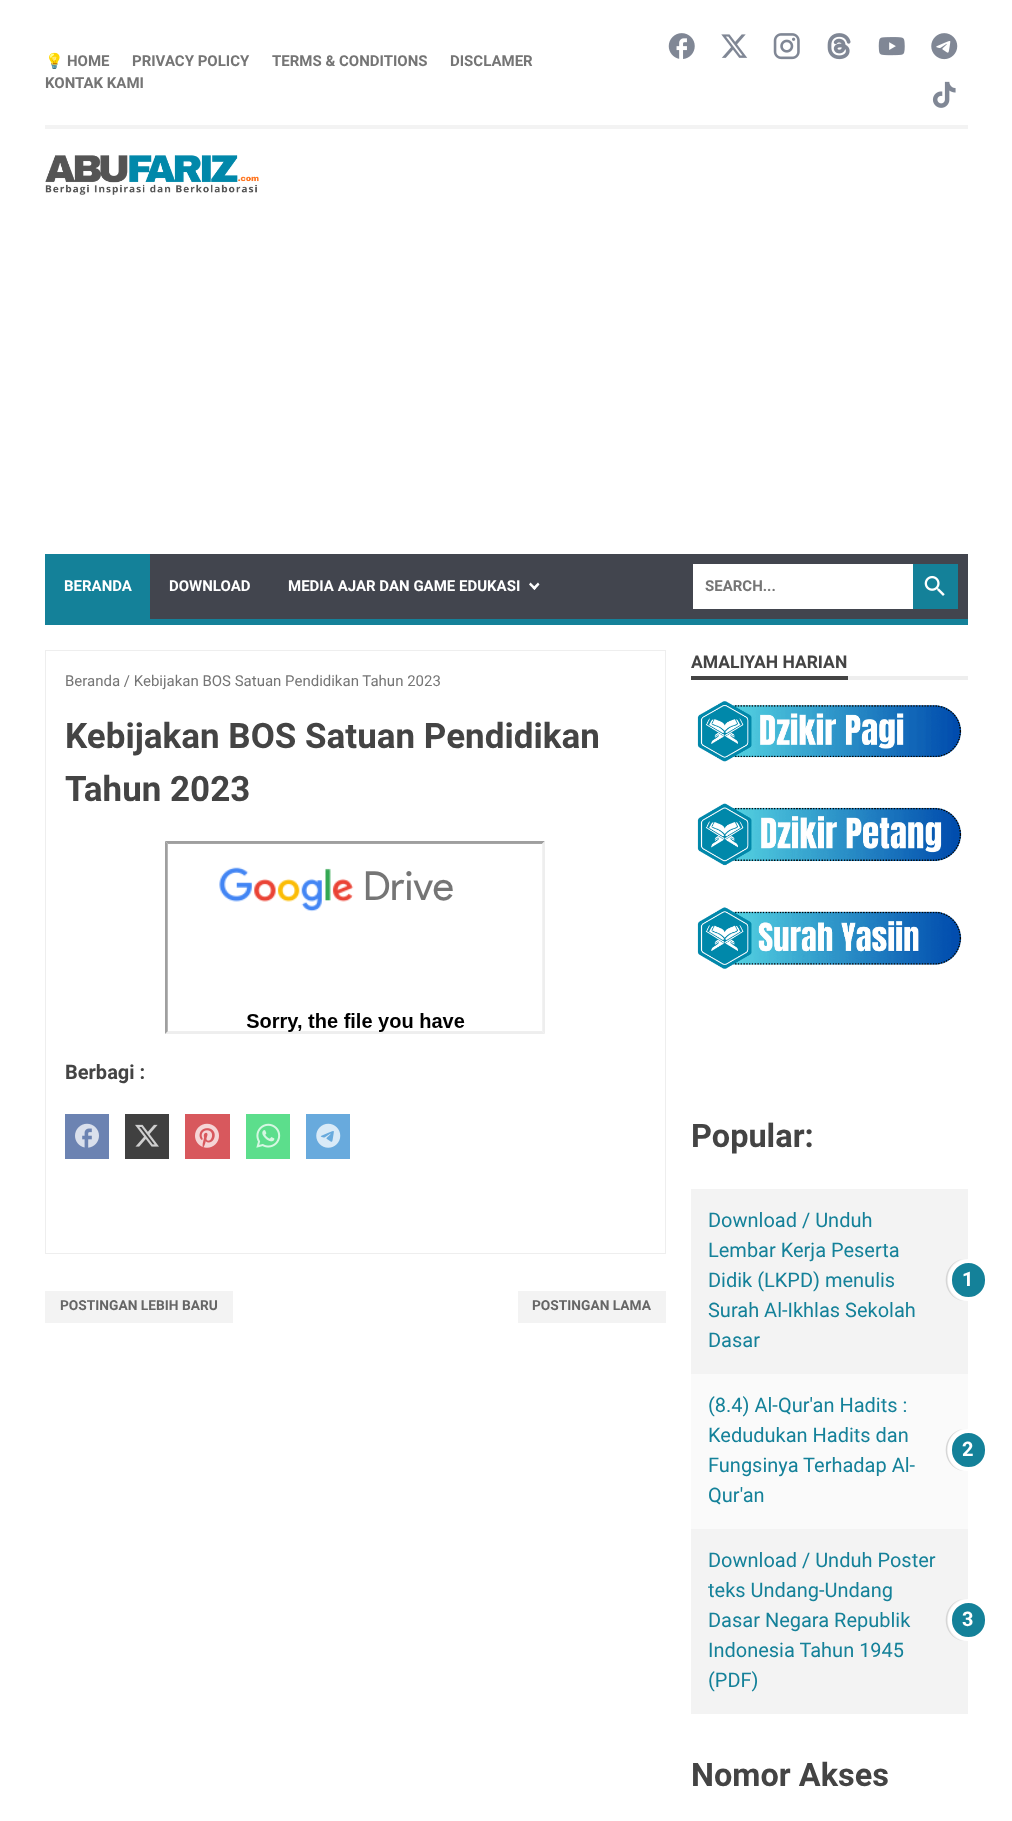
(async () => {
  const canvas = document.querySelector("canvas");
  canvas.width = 1012;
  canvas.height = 1821;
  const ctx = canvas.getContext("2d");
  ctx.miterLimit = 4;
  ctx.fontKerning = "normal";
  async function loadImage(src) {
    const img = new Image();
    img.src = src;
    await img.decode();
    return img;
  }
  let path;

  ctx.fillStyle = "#ffffff";
  ctx.fillRect(0, 0, 1012, 1821);
  ctx.fillStyle = "#f3f3f3";
  ctx.fillRect(45, 125, 923, 4);
  ctx.drawImage(await loadImage("img/1.png"), 668, 33, 27, 26);
  ctx.drawImage(await loadImage("img/2.png"), 721, 34, 27, 24);
  ctx.drawImage(await loadImage("img/3.png"), 773, 33, 27, 27);
  ctx.drawImage(await loadImage("img/4.png"), 827, 33, 24, 27);
  ctx.drawImage(await loadImage("img/5.png"), 878, 37, 27, 19);
  ctx.drawImage(await loadImage("img/6.png"), 931, 33, 27, 27);
  ctx.drawImage(await loadImage("img/7.png"), 932, 81, 24, 27);
  ctx.drawImage(await loadImage("img/8.png"), 45, 155, 214, 40);
  ctx.fillStyle = "#42454e";
  ctx.fillRect(150, 554, 818, 65);
  ctx.fillStyle = "#148199";
  ctx.fillRect(45, 554, 105, 65);
  ctx.fillStyle = "#ffffff";
  path = new Path2D("M532.5 588L538 582.5L539.5 584.5L534.5 590Z");
  ctx.fill(path);
  path = new Path2D("M529 584.5L530.5 582.5L536 588L534.5 590Z");
  ctx.fill(path);
  ctx.fillRect(693, 564, 220, 45);
  ctx.fillStyle = "#148199";
  ctx.fillRect(913, 564, 45, 45);
  ctx.drawImage(await loadImage("img/9.png"), 924, 575, 21, 21);
  ctx.fillRect(45, 619, 923, 6);
  ctx.strokeStyle = "#eeeeee";
  ctx.strokeRect(45.5, 650.5, 620, 603);
  ctx.fillStyle = "#9f9f9f";
  path = new Path2D("M165 841H545L542 844H168Z");
  ctx.fill(path);
  ctx.fillStyle = "#eeeeee";
  path = new Path2D("M545 841V1034L542 1031V844Z");
  ctx.fill(path);
  path = new Path2D("M545 1034H165L168 1031H542Z");
  ctx.fill(path);
  ctx.fillStyle = "#9f9f9f";
  path = new Path2D("M165 1034V841L168 844V1031Z");
  ctx.fill(path);
  ctx.drawImage(await loadImage("img/10.png"), 167, 843, 376, 189);
  ctx.fillStyle = "#6c83b2";
  ctx.fillRect(65, 1114, 44, 45);
  ctx.drawImage(await loadImage("img/11.png"), 75, 1123, 24, 25);
  ctx.fillStyle = "#404040";
  ctx.fillRect(125, 1114, 44, 45);
  ctx.drawImage(await loadImage("img/12.png"), 135, 1124, 24, 23);
  ctx.fillStyle = "#d8585d";
  ctx.fillRect(185, 1114, 45, 45);
  ctx.drawImage(await loadImage("img/13.png"), 195, 1123, 24, 25);
  ctx.fillStyle = "#5cde8c";
  ctx.fillRect(246, 1114, 44, 45);
  ctx.drawImage(await loadImage("img/14.png"), 256, 1123, 25, 25);
  ctx.fillStyle = "#68aadd";
  ctx.fillRect(306, 1114, 44, 45);
  ctx.drawImage(await loadImage("img/15.png"), 316, 1123, 25, 25);
  for (const [x, y, w, h, color] of [
    [45, 1291, 188, 32, "#f3f3f3"],
    [518, 1291, 148, 32, "#f3f3f3"],
    [848, 676, 120, 4, "#eeeeee"],
    [691, 676, 157, 4, "#444444"],
  ]) {
    ctx.fillStyle = color;
    ctx.fillRect(x, y, w, h);
  }
  ctx.drawImage(await loadImage("img/16.png"), 697, 701, 265, 61);
  ctx.drawImage(await loadImage("img/17.png"), 697, 803, 265, 63);
  ctx.drawImage(await loadImage("img/18.png"), 697, 907, 265, 62);
  ctx.fillStyle = "#f3f3f3";
  ctx.fillRect(691, 1189, 277, 185);
  ctx.fillStyle = "#d6d6d6";
  path = new Path2D("M963 1301C942 1296 942 1264 963 1259C940 1263 940 1297 963 1301Z");
  ctx.fill(path);
  ctx.fillStyle = "#148199";
  ctx.beginPath();
  ctx.roundRect(950, 1261, 37, 38, 18.5);
  ctx.fill();
  ctx.strokeStyle = "#ffffff";
  ctx.lineWidth = 4;
  ctx.stroke();
  ctx.fillStyle = "#fafafa";
  ctx.fillRect(691, 1374, 277, 155);
  ctx.fillStyle = "#d6d6d6";
  path = new Path2D("M963 1471C942 1466 942 1434 963 1429C940 1433 940 1467 963 1471Z");
  ctx.fill(path);
  ctx.fillStyle = "#148199";
  ctx.beginPath();
  ctx.roundRect(950, 1431, 37, 38, 18.5);
  ctx.fill();
  ctx.stroke();
  ctx.fillStyle = "#f3f3f3";
  ctx.fillRect(691, 1529, 277, 185);
  ctx.fillStyle = "#d6d6d6";
  path = new Path2D("M963 1641C942 1636 942 1604 963 1599C940 1603 940 1637 963 1641Z");
  ctx.fill(path);
  ctx.fillStyle = "#148199";
  ctx.beginPath();
  ctx.roundRect(950, 1601, 37, 38, 18.5);
  ctx.fill();
  ctx.stroke();
  ctx.font = "bold 15px Noto Color Emoji";
  ctx.fillStyle = "#757575";
  ctx.fillText("💡", 45, 66);
  ctx.font = "bold 15px Roboto";
  for (const [text, x, y] of [
    ["HOME", 67, 66],
    ["PRIVACY POLICY", 132, 66],
    ["TERMS & CONDITIONS", 272, 66],
    ["DISCLAMER", 450, 66],
    ["KONTAK KAMI", 45, 88],
  ]) {
    ctx.fillText(text, x, y);
  }
  ctx.fillStyle = "#ffffff";
  for (const [text, x, y] of [
    ["BERANDA", 64, 591],
    ["DOWNLOAD", 169, 591],
    ["MEDIA AJAR DAN GAME EDUKASI", 288, 591],
  ]) {
    ctx.fillText(text, x, y);
  }
  ctx.fillStyle = "#757575";
  ctx.fillText("SEARCH...", 705, 591);
  ctx.font = "15px Roboto";
  ctx.fillText("Beranda / Kebijakan BOS Satuan Pendidikan Tahun 2023", 65, 686);
  ctx.font = "bold 35px Roboto";
  ctx.fillStyle = "#444444";
  ctx.fillText("Kebijakan BOS Satuan Pendidikan", 65, 748);
  ctx.fillText("Tahun 2023", 65, 801);
  ctx.font = "bold 20px Roboto";
  ctx.fillText("Berbagi :", 65, 1079);
  ctx.font = "bold 13.75px Roboto";
  ctx.fillStyle = "#666666";
  ctx.fillText("POSTINGAN LEBIH BARU", 60, 1310);
  ctx.fillText("POSTINGAN LAMA", 532, 1310);
  ctx.font = "bold 17.5px Roboto";
  ctx.fillStyle = "#444444";
  ctx.fillText("AMALIYAH HARIAN", 691, 668);
  ctx.font = "bold 32.5px Roboto";
  ctx.fillText("Popular:", 691, 1147);
  ctx.font = "20px Roboto";
  ctx.fillStyle = "#148199";
  for (const [text, x, y] of [
    ["Download / Unduh", 708, 1227],
    ["Lembar Kerja Peserta", 708, 1257],
    ["Didik (LKPD) menulis", 708, 1287],
    ["Surah Al-Ikhlas Sekolah", 708, 1317],
    ["Dasar", 708, 1347],
  ]) {
    ctx.fillText(text, x, y);
  }
  ctx.font = "bold 20px Roboto";
  ctx.fillStyle = "#ffffff";
  ctx.fillText("1", 962, 1286);
  ctx.font = "20px Roboto";
  ctx.fillStyle = "#148199";
  for (const [text, x, y] of [
    ["(8.4) Al-Qur'an Hadits :", 708, 1412],
    ["Kedudukan Hadits dan", 708, 1442],
    ["Fungsinya Terhadap Al-", 708, 1472],
    ["Qur'an", 708, 1502],
  ]) {
    ctx.fillText(text, x, y);
  }
  ctx.font = "bold 20px Roboto";
  ctx.fillStyle = "#ffffff";
  ctx.fillText("2", 962, 1456);
  ctx.font = "20px Roboto";
  ctx.fillStyle = "#148199";
  for (const [text, x, y] of [
    ["Download / Unduh Poster", 708, 1567],
    ["teks Undang-Undang", 708, 1597],
    ["Dasar Negara Republik", 708, 1627],
    ["Indonesia Tahun 1945", 708, 1657],
    ["(PDF)", 708, 1687],
  ]) {
    ctx.fillText(text, x, y);
  }
  ctx.font = "bold 20px Roboto";
  ctx.fillStyle = "#ffffff";
  ctx.fillText("3", 962, 1626);
  ctx.font = "bold 32.5px Roboto";
  ctx.fillStyle = "#444444";
  ctx.fillText("Nomor Akses", 691, 1786);
})();
